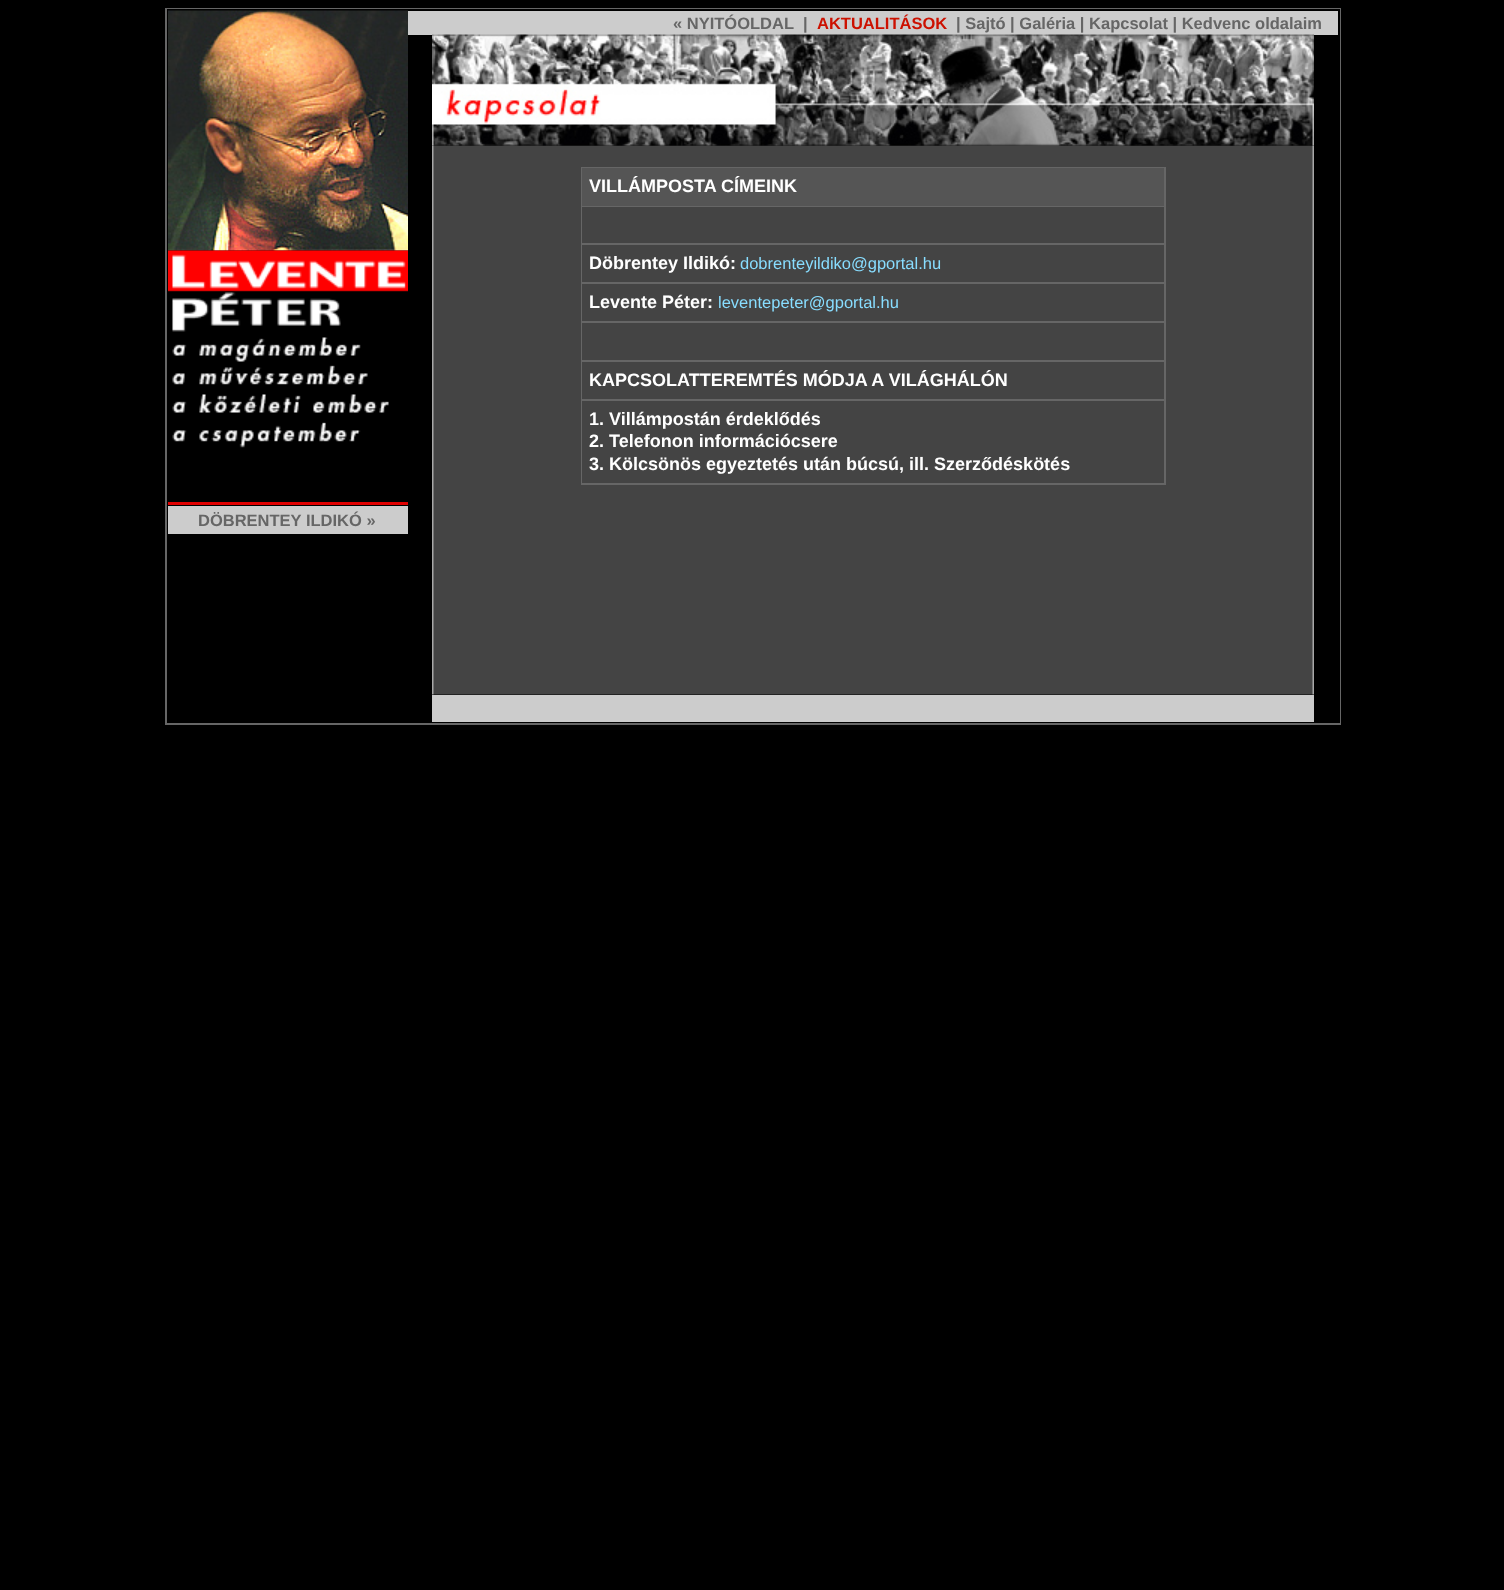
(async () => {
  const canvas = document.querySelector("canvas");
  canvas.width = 1504;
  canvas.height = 1590;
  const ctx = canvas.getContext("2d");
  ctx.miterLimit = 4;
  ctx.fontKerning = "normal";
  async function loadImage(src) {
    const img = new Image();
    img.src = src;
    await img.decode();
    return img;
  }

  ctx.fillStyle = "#000000";
  ctx.fillRect(0, 0, 1504, 1590);
  for (const [x, y, w, h, color] of [
    [165, 8, 1176, 717, "#666666"],
    [167, 9, 1173, 714, "#000000"],
    [408, 11, 930, 24, "#cccccc"],
  ]) {
    ctx.fillStyle = color;
    ctx.fillRect(x, y, w, h);
  }
  ctx.drawImage(await loadImage("img/1.png"), 168, 10, 240, 241);
  ctx.drawImage(await loadImage("img/2.png"), 168, 250, 240, 82);
  ctx.drawImage(await loadImage("img/3.png"), 172, 337, 189, 25);
  ctx.drawImage(await loadImage("img/4.png"), 172, 365, 196, 20);
  ctx.drawImage(await loadImage("img/5.png"), 172, 394, 217, 19);
  ctx.drawImage(await loadImage("img/6.png"), 172, 422, 189, 26);
  ctx.fillStyle = "#df0000";
  ctx.fillRect(168, 502, 240, 3);
  ctx.fillStyle = "#cccccc";
  ctx.fillRect(168, 506, 240, 28);
  ctx.drawImage(await loadImage("img/8.png"), 432, 145, 882, 550);
  ctx.drawImage(await loadImage("img/7.png"), 432, 34, 882, 112);
  for (const [x, y, w, h, color] of [
    [581, 167, 585, 318, "#666666"],
    [582, 168, 582, 38, "#555555"],
    [582, 207, 582, 36, "#444444"],
    [582, 245, 582, 37, "#444444"],
    [582, 284, 582, 37, "#444444"],
    [582, 323, 582, 37, "#444444"],
    [582, 362, 582, 37, "#444444"],
    [582, 401, 582, 82, "#444444"],
    [432, 695, 882, 27, "#cccccc"],
  ]) {
    ctx.fillStyle = color;
    ctx.fillRect(x, y, w, h);
  }
  ctx.font = "bold 16.5px Liberation Sans";
  ctx.fillStyle = "#666666";
  ctx.fillText("« NYITÓOLDAL", 673, 29);
  ctx.fillText("|", 803, 29);
  ctx.fillStyle = "#cc1100";
  ctx.fillText("AKTUALITÁSOK", 817, 29);
  ctx.fillStyle = "#666666";
  ctx.fillText("| Sajtó | Galéria | Kapcsolat | Kedvenc oldalaim", 956, 29);
  ctx.fillText("DÖBRENTEY ILDIKÓ »", 198, 526);
  ctx.font = "bold 18px Liberation Sans";
  ctx.fillStyle = "#ffffff";
  ctx.fillText("VILLÁMPOSTA CÍMEINK", 589, 192);
  ctx.fillText("Döbrentey Ildikó:", 589, 269);
  ctx.font = "16.5px Liberation Sans";
  ctx.fillStyle = "#88ddff";
  ctx.fillText("dobrenteyildiko@gportal.hu", 740, 269);
  ctx.font = "bold 18px Liberation Sans";
  ctx.fillStyle = "#ffffff";
  ctx.fillText("Levente Péter:", 589, 308);
  ctx.font = "16.5px Liberation Sans";
  ctx.fillStyle = "#88ddff";
  ctx.fillText("leventepeter@gportal.hu", 718, 308);
  ctx.font = "bold 18px Liberation Sans";
  ctx.fillStyle = "#ffffff";
  for (const [text, x, y] of [
    ["KAPCSOLATTEREMTÉS MÓDJA A VILÁGHÁLÓN", 589, 386],
    ["1. Villámpostán érdeklődés", 589, 425],
    ["2. Telefonon információcsere", 589, 447],
    ["3. Kölcsönös egyeztetés után búcsú, ill. Szerződéskötés", 589, 470],
  ]) {
    ctx.fillText(text, x, y);
  }
})();
